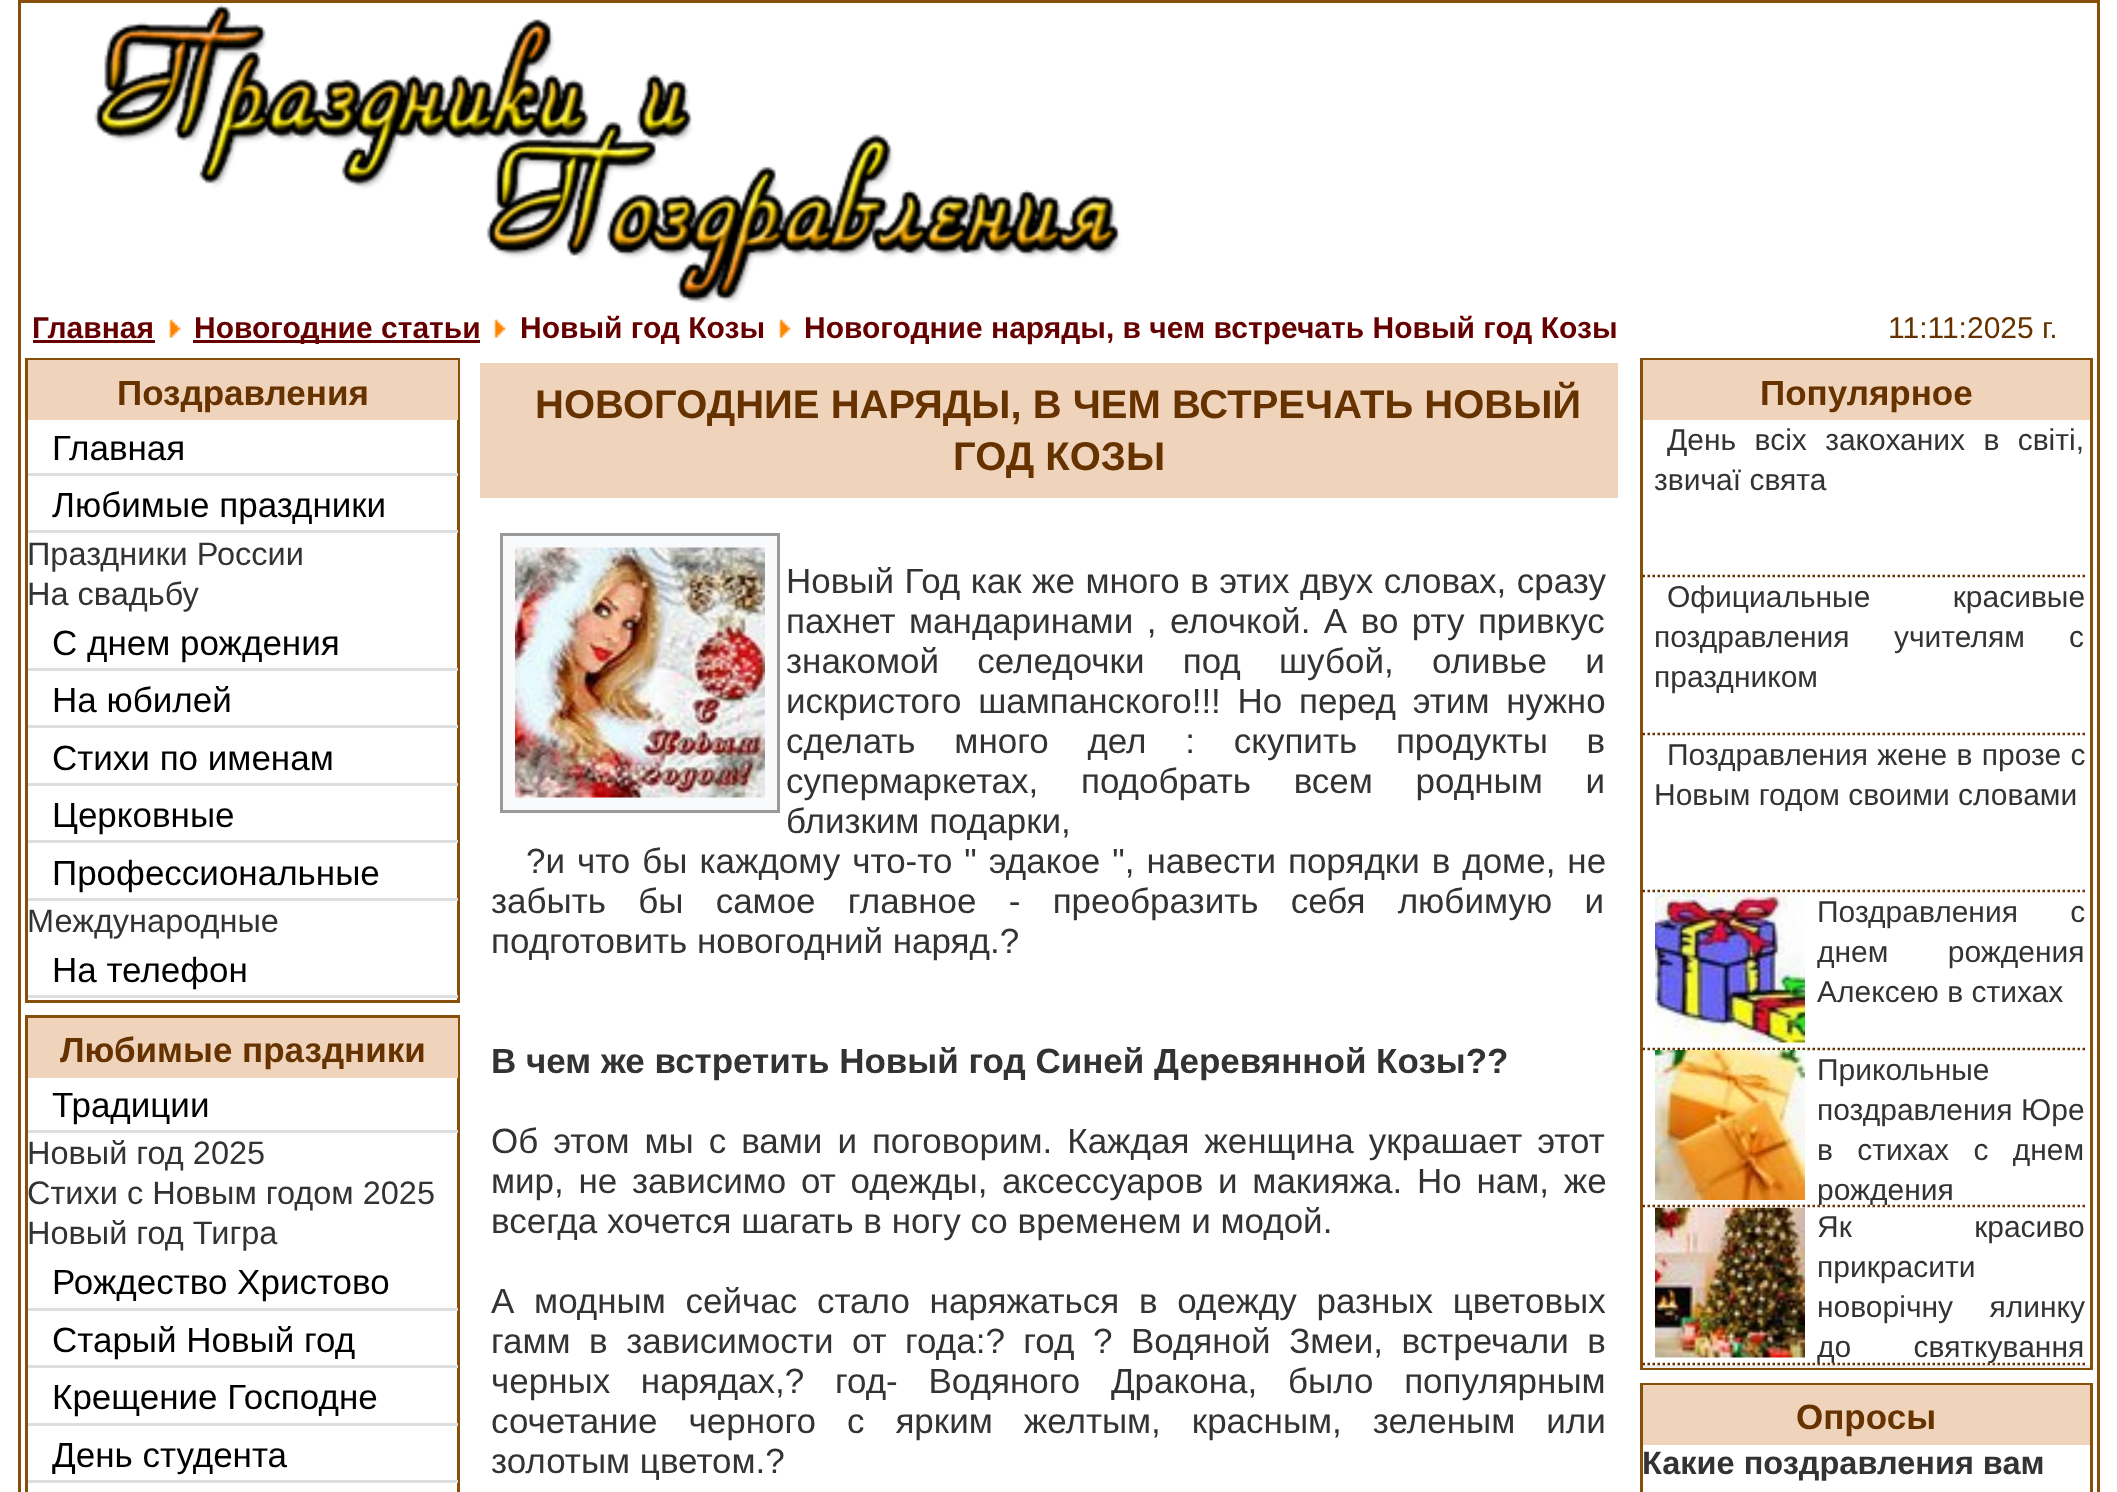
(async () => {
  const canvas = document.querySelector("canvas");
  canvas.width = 2117;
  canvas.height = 1492;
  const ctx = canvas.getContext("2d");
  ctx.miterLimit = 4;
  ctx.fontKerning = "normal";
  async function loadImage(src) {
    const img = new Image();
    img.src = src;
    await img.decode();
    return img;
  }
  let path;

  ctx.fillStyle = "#ffffff";
  ctx.fillRect(0, 0, 2117, 1492);
  ctx.strokeStyle = "#884f08";
  ctx.lineWidth = 3;
  ctx.strokeRect(19.5, 1.5, 2079, 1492);
  ctx.drawImage(await loadImage("img/1.png"), 94, 4, 1027, 299);
  ctx.fillStyle = "#660000";
  ctx.fillRect(33, 340, 122, 3);
  ctx.drawImage(await loadImage("img/2.png"), 169, 319, 12, 19);
  ctx.fillRect(193, 340, 287, 3);
  ctx.drawImage(await loadImage("img/2.png"), 494, 319, 12, 19);
  ctx.drawImage(await loadImage("img/3.png"), 779, 319, 12, 19);
  ctx.strokeRect(26.5, 359.5, 432, 642);
  for (const [x, y, w, h, color] of [
    [28, 360, 430, 60, "#efd3bb"],
    [28, 473, 430, 3, "#dcdfe1"],
    [28, 530, 430, 3, "#dcdfe1"],
    [28, 668, 430, 3, "#dcdfe1"],
    [28, 725, 430, 3, "#dcdfe1"],
    [28, 783, 430, 3, "#dcdfe1"],
    [28, 840, 430, 3, "#dcdfe1"],
    [28, 898, 430, 3, "#dcdfe1"],
    [28, 995, 430, 3, "#dcdfe1"],
  ]) {
    ctx.fillStyle = color;
    ctx.fillRect(x, y, w, h);
  }
  ctx.strokeRect(26.5, 1016.5, 432, 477);
  for (const [x, y, w, h, color] of [
    [28, 1018, 430, 60, "#efd3bb"],
    [28, 1130, 430, 3, "#dcdfe1"],
    [28, 1308, 430, 3, "#dcdfe1"],
    [28, 1365, 430, 3, "#dcdfe1"],
    [28, 1423, 430, 3, "#dcdfe1"],
    [28, 1480, 430, 3, "#dcdfe1"],
    [480, 363, 1138, 135, "#efd3bb"],
  ]) {
    ctx.fillStyle = color;
    ctx.fillRect(x, y, w, h);
  }
  ctx.fillStyle = "#f8fafc";
  ctx.beginPath();
  ctx.rect(501.5, 534.5, 277, 277);
  ctx.fill();
  ctx.strokeStyle = "#999999";
  ctx.stroke();
  ctx.drawImage(await loadImage("img/4.png"), 515, 547, 250, 251);
  ctx.strokeStyle = "#884f08";
  ctx.strokeRect(1641.5, 359.5, 450, 1009);
  ctx.fillStyle = "#efd3bb";
  ctx.fillRect(1643, 360, 447, 60);
  path = new Path2D("M1642.5 576H2085");
  ctx.strokeStyle = "#663300";
  ctx.lineWidth = 2.5;
  ctx.setLineDash([2.5, 2.5]);
  ctx.stroke(path);
  path = new Path2D("M1642.5 734H2085");
  ctx.stroke(path);
  path = new Path2D("M1642.5 891H2085");
  ctx.stroke(path);
  path = new Path2D("M1642.5 1049H2085");
  ctx.stroke(path);
  ctx.drawImage(await loadImage("img/5.png"), 1655, 892, 150, 151);
  path = new Path2D("M1642.5 1206H2085");
  ctx.stroke(path);
  ctx.drawImage(await loadImage("img/6.png"), 1655, 1050, 150, 150);
  ctx.fillStyle = "#eeeeee";
  ctx.fillRect(1643, 1365, 447, 3);
  path = new Path2D("M1642.5 1364H2085");
  ctx.stroke(path);
  ctx.drawImage(await loadImage("img/7.png"), 1655, 1207, 150, 151);
  ctx.strokeStyle = "#884f08";
  ctx.lineWidth = 3;
  ctx.setLineDash([]);
  ctx.strokeRect(1641.5, 1384.5, 450, 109);
  ctx.fillStyle = "#efd3bb";
  ctx.fillRect(1643, 1385, 447, 60);
  ctx.font = "bold 30px Liberation Sans";
  ctx.fillStyle = "#660000";
  for (const [text, x, y] of [
    ["Главная", 32, 338],
    ["Новогодние статьи", 194, 338],
    ["Новый год Козы", 520, 338],
    ["Новогодние наряды, в чем встречать Новый год Козы", 804, 338],
  ]) {
    ctx.fillText(text, x, y);
  }
  ctx.font = "30px Liberation Sans";
  ctx.fillStyle = "#663300";
  ctx.fillText("11:11:2025 г.", 1888, 338);
  ctx.font = "bold 35px Liberation Sans";
  ctx.fillText("Поздравления", 117, 405);
  ctx.font = "35px Liberation Sans";
  ctx.fillStyle = "#000000";
  ctx.fillText("Главная", 52, 460);
  ctx.fillText("Любимые праздники", 52, 517);
  ctx.font = "32.5px Liberation Sans";
  ctx.fillStyle = "#333333";
  ctx.fillText("Праздники России", 27, 565);
  ctx.fillText("На свадьбу", 27, 605);
  ctx.font = "35px Liberation Sans";
  ctx.fillStyle = "#000000";
  for (const [text, x, y] of [
    ["С днем рождения", 52, 655],
    ["На юбилей", 52, 712],
    ["Стихи по именам", 52, 770],
    ["Церковные", 52, 827],
    ["Профессиональные", 52, 885],
  ]) {
    ctx.fillText(text, x, y);
  }
  ctx.font = "32.5px Liberation Sans";
  ctx.fillStyle = "#333333";
  ctx.fillText("Международные", 27, 932);
  ctx.font = "35px Liberation Sans";
  ctx.fillStyle = "#000000";
  ctx.fillText("На телефон", 52, 982);
  ctx.font = "bold 35px Liberation Sans";
  ctx.fillStyle = "#663300";
  ctx.fillText("Любимые праздники", 60, 1062);
  ctx.font = "35px Liberation Sans";
  ctx.fillStyle = "#000000";
  ctx.fillText("Традиции", 52, 1117);
  ctx.font = "32.5px Liberation Sans";
  ctx.fillStyle = "#333333";
  for (const [text, x, y] of [
    ["Новый год 2025", 27, 1164],
    ["Стихи с Новым годом 2025", 27, 1204],
    ["Новый год Тигра", 27, 1244],
  ]) {
    ctx.fillText(text, x, y);
  }
  ctx.font = "35px Liberation Sans";
  ctx.fillStyle = "#000000";
  for (const [text, x, y] of [
    ["Рождество Христово", 52, 1294],
    ["Старый Новый год", 52, 1352],
    ["Крещение Господне", 52, 1409],
    ["День студента", 52, 1467],
  ]) {
    ctx.fillText(text, x, y);
  }
  ctx.font = "bold 40px Liberation Sans";
  ctx.fillStyle = "#663300";
  ctx.fillText("НОВОГОДНИЕ НАРЯДЫ, В ЧЕМ ВСТРЕЧАТЬ НОВЫЙ", 535, 418);
  ctx.fillText("ГОД КОЗЫ", 953, 470);
  ctx.wordSpacing = "0.75px";
  ctx.font = "35px Liberation Sans";
  ctx.fillStyle = "#333333";
  ctx.fillText("Новый Год как же много в этих двух словах, сразу", 786, 593);
  ctx.wordSpacing = "3.75px";
  ctx.fillText("пахнет мандаринами , елочкой. А во рту привкус", 786, 633);
  ctx.wordSpacing = "28.5px";
  ctx.fillText("знакомой селедочки под шубой, оливье и", 786, 673);
  ctx.wordSpacing = "7px";
  ctx.fillText("искристого шампанского!!! Но перед этим нужно", 786, 713);
  ctx.wordSpacing = "29px";
  ctx.fillText("сделать много дел : скупить продукты в", 786, 753);
  ctx.wordSpacing = "33px";
  ctx.fillText("супермаркетах, подобрать всем родным и", 786, 793);
  ctx.wordSpacing = "0px";
  ctx.fillText("близким подарки,", 786, 833);
  ctx.wordSpacing = "2.25px";
  ctx.fillText("?и что бы каждому что-то \" эдакое \", навести порядки в доме, не", 526, 873);
  ctx.wordSpacing = "22.5px";
  ctx.fillText("забыть бы самое главное - преобразить себя любимую и", 491, 913);
  ctx.wordSpacing = "0px";
  ctx.fillText("подготовить новогодний наряд.?", 491, 953);
  ctx.font = "bold 35px Liberation Sans";
  ctx.fillText("В чем же встретить Новый год Синей Деревянной Козы??", 491, 1073);
  ctx.wordSpacing = "5.25px";
  ctx.font = "35px Liberation Sans";
  ctx.fillText("Об этом мы с вами и поговорим. Каждая женщина украшает этот", 491, 1153);
  ctx.wordSpacing = "5px";
  ctx.fillText("мир, не зависимо от одежды, аксессуаров и макияжа. Но нам, же", 491, 1193);
  ctx.wordSpacing = "0px";
  ctx.fillText("всегда хочется шагать в ногу со временем и модой.", 491, 1233);
  ctx.wordSpacing = "10px";
  ctx.fillText("А модным сейчас стало наряжаться в одежду разных цветовых", 491, 1313);
  ctx.wordSpacing = "8.75px";
  ctx.fillText("гамм в зависимости от года:? год ? Водяной Змеи, встречали в", 491, 1353);
  ctx.wordSpacing = "21px";
  ctx.fillText("черных нарядах,? год- Водяного Дракона, было популярным", 491, 1393);
  ctx.wordSpacing = "21.25px";
  ctx.fillText("сочетание черного с ярким желтым, красным, зеленым или", 491, 1433);
  ctx.wordSpacing = "0px";
  ctx.fillText("золотым цветом.?", 491, 1473);
  ctx.font = "bold 35px Liberation Sans";
  ctx.fillStyle = "#663300";
  ctx.fillText("Популярное", 1760, 405);
  ctx.wordSpacing = "10px";
  ctx.font = "30px Liberation Sans";
  ctx.fillStyle = "#333333";
  ctx.fillText("День всіх закоханих в світі,", 1667, 450);
  ctx.wordSpacing = "0px";
  ctx.fillText("звичаї свята", 1654, 490);
  ctx.wordSpacing = "74px";
  ctx.fillText("Официальные красивые", 1667, 607);
  ctx.wordSpacing = "36px";
  ctx.fillText("поздравления учителям с", 1654, 647);
  ctx.wordSpacing = "0px";
  ctx.fillText("праздником", 1654, 687);
  ctx.wordSpacing = "1px";
  ctx.fillText("Поздравления жене в прозе с", 1667, 765);
  ctx.wordSpacing = "0px";
  ctx.fillText("Новым годом своими словами", 1654, 805);
  ctx.wordSpacing = "44px";
  ctx.fillText("Поздравления с", 1817, 922);
  ctx.wordSpacing = "51px";
  ctx.fillText("днем рождения", 1817, 962);
  ctx.wordSpacing = "0px";
  for (const [text, x, y] of [
    ["Алексею в стихах", 1817, 1002],
    ["Прикольные", 1817, 1080],
    ["поздравления Юре", 1817, 1120],
  ]) {
    ctx.fillText(text, x, y);
  }
  ctx.wordSpacing = "16px";
  ctx.fillText("в стихах с днем", 1817, 1160);
  ctx.save();
  ctx.beginPath();
  ctx.rect(1643, 1050, 442, 155);
  ctx.clip();
  ctx.wordSpacing = "0px";
  ctx.fillText("рождения", 1817, 1200);
  ctx.restore();
  ctx.wordSpacing = "114px";
  ctx.fillText("Як красиво", 1817, 1237);
  ctx.wordSpacing = "0px";
  ctx.fillText("прикрасити", 1817, 1277);
  ctx.wordSpacing = "28px";
  ctx.fillText("новорічну ялинку", 1817, 1317);
  ctx.save();
  ctx.beginPath();
  ctx.rect(1643, 1208, 442, 155);
  ctx.clip();
  ctx.wordSpacing = "54px";
  ctx.fillText("до святкування", 1817, 1357);
  ctx.restore();
  ctx.wordSpacing = "0px";
  ctx.font = "bold 35px Liberation Sans";
  ctx.fillStyle = "#663300";
  ctx.fillText("Опросы", 1796, 1429);
  ctx.font = "bold 32.5px Liberation Sans";
  ctx.fillStyle = "#333333";
  ctx.fillText("Какие поздравления вам", 1642, 1474);
})();
